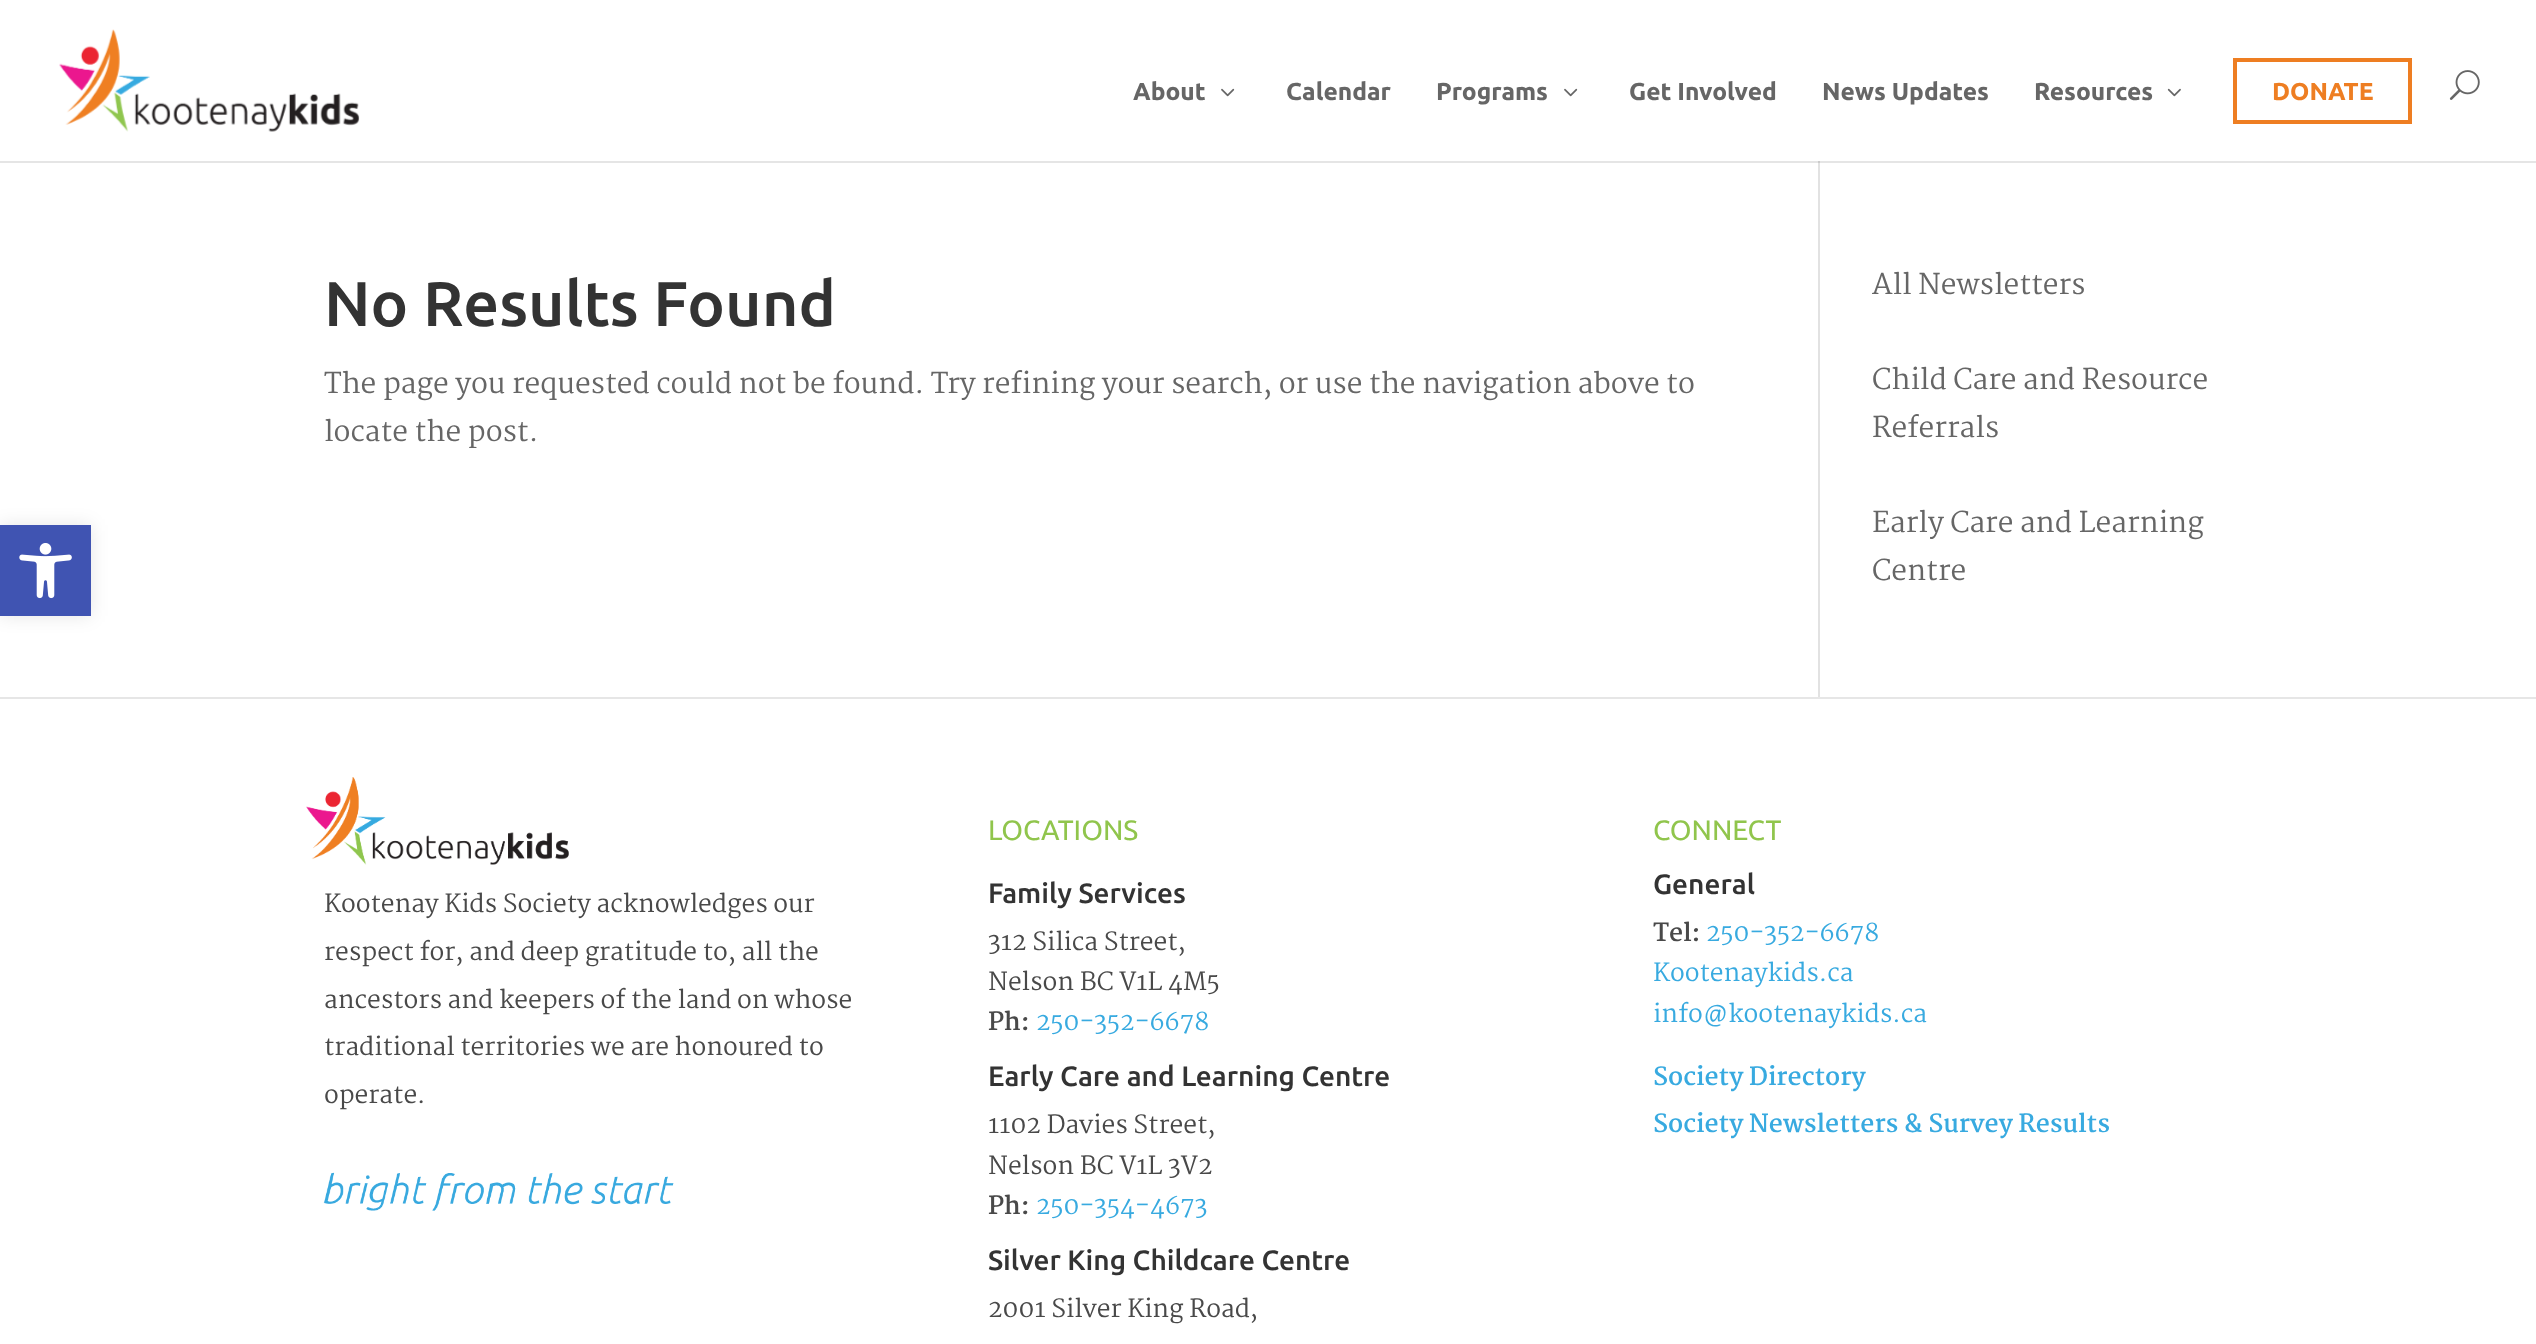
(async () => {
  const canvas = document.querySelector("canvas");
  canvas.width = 2536;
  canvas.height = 1344;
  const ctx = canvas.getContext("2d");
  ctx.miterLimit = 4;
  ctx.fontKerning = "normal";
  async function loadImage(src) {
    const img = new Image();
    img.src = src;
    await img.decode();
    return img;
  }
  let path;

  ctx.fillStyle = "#ffffff";
  ctx.fillRect(0, 0, 2536, 1344);
  ctx.fillStyle = "rgba(0, 0, 0, 0.1)";
  ctx.filter = "blur(9px)";
  ctx.beginPath();
  ctx.rect(0, 525, 91, 91);
  ctx.fill();
  ctx.filter = "none";
  ctx.fillStyle = "#4054b2";
  ctx.fillRect(0, 525, 91, 91);
  ctx.drawImage(await loadImage("img/1.png"), 19, 543, 53, 56);
  ctx.fillStyle = "#e2e2e2";
  ctx.fillRect(1818, 161, 2, 536);
  ctx.fillStyle = "rgba(0, 0, 0, 0.1)";
  path = new Path2D("M0 161V163H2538V2V161Z");
  ctx.fill(path);
  ctx.drawImage(await loadImage("img/2.png"), 59, 29, 301, 103);
  ctx.drawImage(await loadImage("img/3.png"), 1221, 88, 14, 9);
  ctx.drawImage(await loadImage("img/3.png"), 1564, 88, 14, 9);
  ctx.drawImage(await loadImage("img/4.png"), 2167, 88, 14, 9);
  ctx.beginPath();
  ctx.rect(2235, 60, 175, 62);
  ctx.strokeStyle = "#ee7e22";
  ctx.lineWidth = 4;
  ctx.stroke();
  ctx.drawImage(await loadImage("img/5.png"), 2449, 70, 31, 30);
  ctx.fillStyle = "#e6e6e6";
  ctx.fillRect(0, 697, 2536, 2);
  ctx.drawImage(await loadImage("img/6.png"), 306, 777, 263, 88);
  ctx.drawImage(await loadImage("img/7.png"), 323, 1172, 351, 39);
  ctx.font = "bold 24.5px Ubuntu";
  ctx.fillStyle = "#666666";
  for (const [text, x, y] of [
    ["About", 1133, 100],
    ["Calendar", 1286, 100],
    ["Programs", 1436, 100],
    ["Get Involved", 1629, 100],
    ["News Updates", 1822, 100],
    ["Resources", 2034, 100],
  ]) {
    ctx.fillText(text, x, y);
  }
  ctx.fillStyle = "#ee7e22";
  ctx.fillText("DONATE", 2272, 100);
  ctx.font = "500 63px Ubuntu";
  ctx.fillStyle = "#333333";
  ctx.fillText("No Results Found", 324, 326);
  ctx.font = "28px Martel";
  ctx.fillStyle = "#666666";
  for (const [text, x, y] of [
    ["The page you requested could not be found. Try refining your search, or use the navigation above to", 324, 393],
    ["locate the post.", 324, 441],
    ["All Newsletters", 1872, 294],
    ["Child Care and Resource", 1872, 389],
    ["Referrals", 1872, 437],
    ["Early Care and Learning", 1872, 532],
    ["Centre", 1872, 580],
  ]) {
    ctx.fillText(text, x, y);
  }
  ctx.font = "24.5px Martel";
  ctx.fillStyle = "#494949";
  for (const [text, x, y] of [
    ["Kootenay Kids Society acknowledges our", 324, 912],
    ["respect for, and deep gratitude to, all the", 324, 960],
    ["ancestors and keepers of the land on whose", 324, 1008],
    ["traditional territories we are honoured to", 324, 1055],
    ["operate.", 324, 1103],
  ]) {
    ctx.fillText(text, x, y);
  }
  ctx.font = "28px Ubuntu";
  ctx.fillStyle = "#90c54c";
  ctx.fillText("LOCATIONS", 988, 840);
  ctx.font = "500 28px Ubuntu";
  ctx.fillStyle = "#333333";
  ctx.fillText("Family Services", 988, 903);
  ctx.font = "24.5px Martel";
  ctx.fillStyle = "#494949";
  ctx.fillText("312 Silica Street,", 988, 950);
  ctx.fillText("Nelson BC V1L 4M5", 988, 990);
  ctx.font = "bold 24.5px Martel";
  ctx.fillText("Ph:", 988, 1030);
  ctx.font = "24.5px Martel";
  ctx.fillStyle = "#38aae0";
  ctx.fillText("250-352-6678", 1036, 1030);
  ctx.font = "500 28px Ubuntu";
  ctx.fillStyle = "#333333";
  ctx.fillText("Early Care and Learning Centre", 988, 1086);
  ctx.font = "24.5px Martel";
  ctx.fillStyle = "#494949";
  ctx.fillText("1102 Davies Street,", 988, 1133);
  ctx.fillText("Nelson BC V1L 3V2", 988, 1174);
  ctx.font = "bold 24.5px Martel";
  ctx.fillText("Ph:", 988, 1214);
  ctx.font = "24.5px Martel";
  ctx.fillStyle = "#38aae0";
  ctx.fillText("250-354-4673", 1036, 1214);
  ctx.font = "500 28px Ubuntu";
  ctx.fillStyle = "#333333";
  ctx.fillText("Silver King Childcare Centre", 988, 1270);
  ctx.font = "24.5px Martel";
  ctx.fillStyle = "#494949";
  ctx.fillText("2001 Silver King Road,", 988, 1317);
  ctx.font = "28px Ubuntu";
  ctx.fillStyle = "#90c54c";
  ctx.fillText("CONNECT", 1653, 840);
  ctx.font = "500 28px Ubuntu";
  ctx.fillStyle = "#333333";
  ctx.fillText("General", 1653, 894);
  ctx.font = "bold 24.5px Martel";
  ctx.fillStyle = "#494949";
  ctx.fillText("Tel:", 1653, 941);
  ctx.font = "24.5px Martel";
  ctx.fillStyle = "#38aae0";
  for (const [text, x, y] of [
    ["250-352-6678", 1706, 941],
    ["Kootenaykids.ca", 1653, 981],
    ["info@kootenaykids.ca", 1653, 1022],
  ]) {
    ctx.fillText(text, x, y);
  }
  ctx.font = "bold 24.5px Martel";
  ctx.fillText("Society Directory", 1653, 1085);
  ctx.fillText("Society Newsletters & Survey Results", 1653, 1132);
})();
